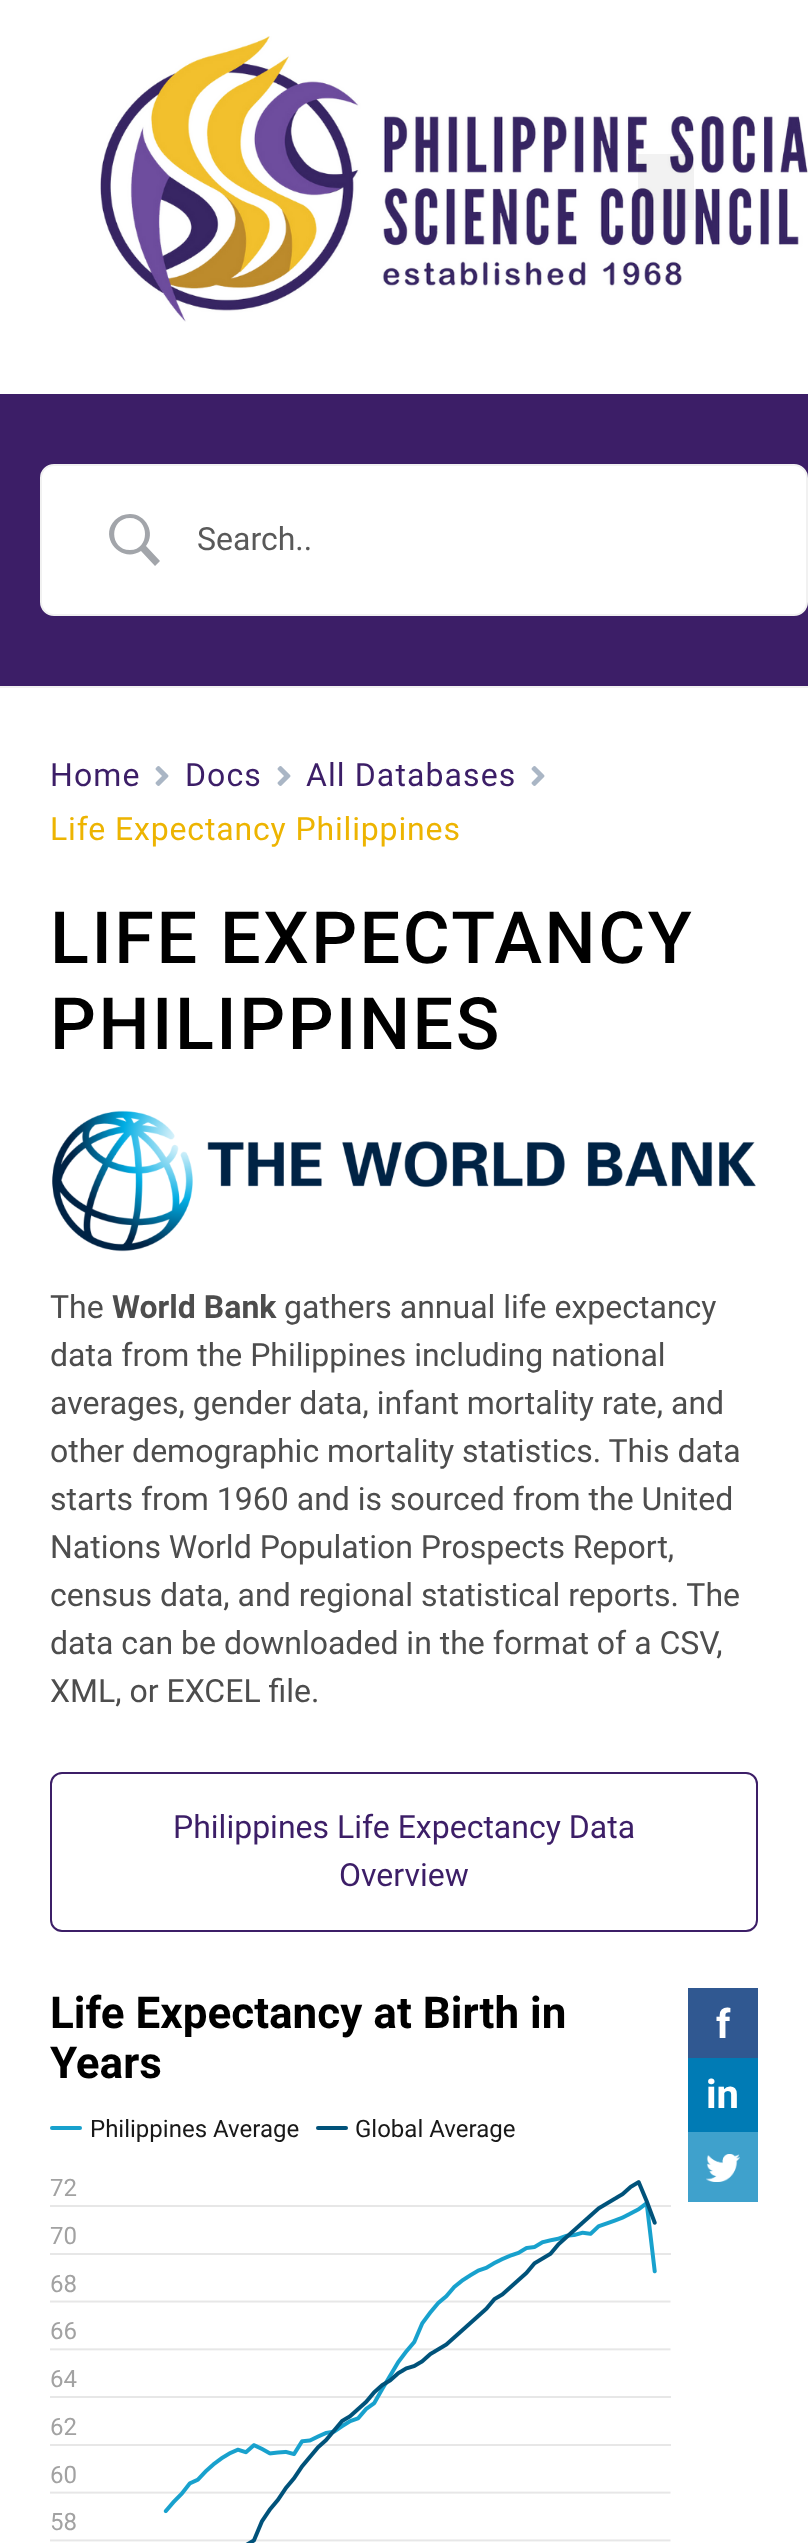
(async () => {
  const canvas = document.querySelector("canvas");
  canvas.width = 808;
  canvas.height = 2543;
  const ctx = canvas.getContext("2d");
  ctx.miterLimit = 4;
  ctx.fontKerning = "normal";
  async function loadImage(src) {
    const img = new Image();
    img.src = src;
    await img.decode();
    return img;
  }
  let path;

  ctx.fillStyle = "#ffffff";
  ctx.fillRect(0, 0, 808, 2543);
  ctx.drawImage(await loadImage("img/1.png"), 100, 36, 708, 286);
  for (const [x, y, w, h, color] of [
    [638, 154, 56, 66, "rgba(0, 0, 0, 0.05)"],
    [0, 394, 808, 292, "#3c1e67"],
    [0, 686, 808, 2, "#f1f1f1"],
  ]) {
    ctx.fillStyle = color;
    ctx.fillRect(x, y, w, h);
  }
  ctx.fillStyle = "#ffffff";
  ctx.beginPath();
  ctx.roundRect(41, 465, 766, 150, 13);
  ctx.fill();
  ctx.strokeStyle = "#f1f1f1";
  ctx.lineWidth = 2;
  ctx.stroke();
  ctx.fillStyle = "#a2a5aa";
  path = new Path2D("M130 514C124 514 119 516 115 520C98 537 121 564 141 551L155 566L160 561L146 546C156 533 146 514 130 514ZM130 518C150 518 150 550 130 550C109 550 109 518 130 518Z");
  ctx.fill(path);
  ctx.drawImage(await loadImage("img/2.png"), 155, 766, 14, 20);
  ctx.drawImage(await loadImage("img/2.png"), 277, 766, 14, 20);
  ctx.drawImage(await loadImage("img/2.png"), 531, 766, 14, 20);
  ctx.drawImage(await loadImage("img/3.png"), 52, 1110, 704, 142);
  ctx.beginPath();
  ctx.roundRect(51, 1773, 706, 158, 11);
  ctx.strokeStyle = "#3c1e67";
  ctx.stroke();
  for (const [x, y, w, h, color] of [
    [688, 1988, 70, 70, "#305891"],
    [688, 2058, 70, 74, "#007bb5"],
    [688, 2132, 70, 70, "#3fa1cc"],
  ]) {
    ctx.fillStyle = color;
    ctx.fillRect(x, y, w, h);
  }
  ctx.drawImage(await loadImage("img/4.png"), 706, 2154, 34, 28);
  path = new Path2D("M52 2128H80");
  ctx.strokeStyle = "#18a1cd";
  ctx.lineWidth = 4;
  ctx.lineCap = "round";
  ctx.lineJoin = "round";
  ctx.stroke(path);
  path = new Path2D("M318 2128H346");
  ctx.strokeStyle = "#00527a";
  ctx.stroke(path);
  ctx.drawImage(await loadImage("img/5.png"), 50, 2180, 621, 363);
  ctx.font = "32px Roboto";
  ctx.fillStyle = "#595959";
  ctx.fillText("Search..", 197, 550);
  ctx.letterSpacing = "1.1px";
  ctx.fillStyle = "#3c1e67";
  for (const [text, x, y] of [
    ["Home", 50, 786],
    ["Docs", 185, 786],
    ["All Databases", 306, 786],
  ]) {
    ctx.fillText(text, x, y);
  }
  ctx.letterSpacing = "0.85px";
  ctx.fillStyle = "#edb401";
  ctx.fillText("Life Expectancy Philippines", 50, 840);
  ctx.letterSpacing = "2.5px";
  ctx.font = "500 72px Roboto";
  ctx.fillStyle = "#000000";
  ctx.fillText("LIFE EXPECTANCY", 50, 963);
  ctx.fillText("PHILIPPINES", 50, 1049);
  ctx.letterSpacing = "0px";
  ctx.font = "32px Roboto";
  ctx.fillStyle = "#4d4d4d";
  ctx.fillText("The", 50, 1318);
  ctx.font = "bold 32px Roboto";
  ctx.fillText("World Bank", 112, 1318);
  ctx.font = "32px Roboto";
  for (const [text, x, y] of [
    ["gathers annual life expectancy", 284, 1318],
    ["data from the Philippines including national", 50, 1366],
    ["averages, gender data, infant mortality rate, and", 50, 1414],
    ["other demographic mortality statistics. This data", 50, 1462],
    ["starts from 1960 and is sourced from the United", 50, 1510],
    ["Nations World Population Prospects Report,", 50, 1558],
    ["census data, and regional statistical reports. The", 50, 1606],
    ["data can be downloaded in the format of a CSV,", 50, 1654],
    ["XML, or EXCEL file.", 50, 1702],
  ]) {
    ctx.fillText(text, x, y);
  }
  ctx.fillStyle = "#3c1e67";
  ctx.fillText("Philippines Life Expectancy Data", 173, 1838);
  ctx.fillText("Overview", 339, 1886);
  ctx.font = "bold 44px Roboto";
  ctx.fillStyle = "#000000";
  ctx.fillText("Life Expectancy at Birth in", 50, 2028);
  ctx.fillText("Years", 50, 2078);
  ctx.font = "bold 40px Roboto";
  ctx.fillStyle = "#ffffff";
  ctx.fillText("f", 716, 2038);
  ctx.fillText("in", 706, 2108);
  ctx.font = "24px Roboto";
  ctx.fillStyle = "#181818";
  ctx.fillText("Philippines Average", 90, 2137);
  ctx.fillText("Global Average", 355, 2137);
  ctx.fillStyle = "#a2a2a2";
  for (const [text, x, y] of [
    ["72", 50, 2196],
    ["70", 50, 2244],
    ["68", 50, 2292],
    ["66", 50, 2339],
    ["64", 50, 2387],
    ["62", 50, 2435],
    ["60", 50, 2483],
    ["58", 50, 2530],
  ]) {
    ctx.fillText(text, x, y);
  }
})();
